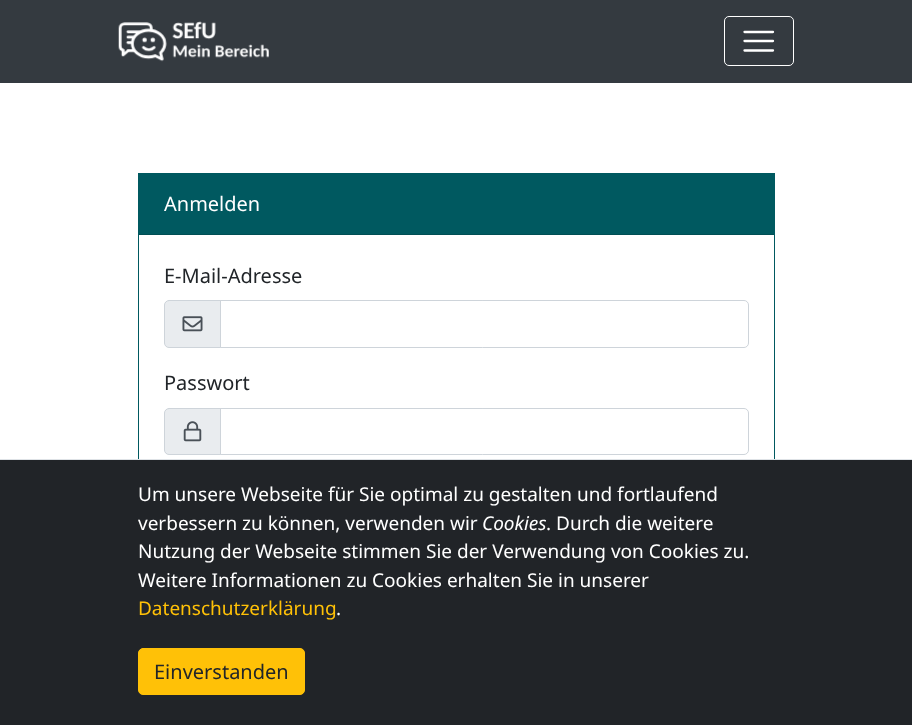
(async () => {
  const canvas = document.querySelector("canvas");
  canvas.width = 912;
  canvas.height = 725;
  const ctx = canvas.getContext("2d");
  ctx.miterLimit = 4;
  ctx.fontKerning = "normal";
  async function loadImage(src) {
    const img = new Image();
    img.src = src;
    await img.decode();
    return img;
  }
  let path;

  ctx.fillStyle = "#ffffff";
  ctx.fillRect(0, 0, 912, 725);
  ctx.fillStyle = "#343a40";
  ctx.fillRect(0, 0, 912, 83);
  ctx.drawImage(await loadImage("img/1.png"), 118, 21, 151, 41);
  ctx.beginPath();
  ctx.roundRect(724.5, 16.5, 69, 49, 4.5);
  ctx.strokeStyle = "#ffffff";
  ctx.stroke();
  path = new Path2D("M744.5 32H773M744.5 41H773M744.5 50.5H773");
  ctx.lineWidth = 2.3;
  ctx.lineCap = "round";
  ctx.stroke(path);
  ctx.strokeStyle = "#005960";
  ctx.lineWidth = 1;
  ctx.strokeRect(138.5, 173.5, 636, 425);
  ctx.fillStyle = "#005960";
  ctx.fillRect(139, 174, 635, 60);
  ctx.fillStyle = "#004e54";
  ctx.fillRect(139, 234, 635, 1);
  ctx.fillStyle = "#e9ecef";
  ctx.beginPath();
  ctx.roundRect(164.5, 300.5, 56, 47, [4.5, 0, 0, 4.5]);
  ctx.fill();
  ctx.strokeStyle = "#ced4da";
  ctx.stroke();
  ctx.drawImage(await loadImage("img/2.png"), 182, 316, 21, 16);
  ctx.beginPath();
  ctx.roundRect(220.5, 300.5, 528, 47, [0, 4.5, 4.5, 0]);
  ctx.stroke();
  ctx.beginPath();
  ctx.roundRect(164.5, 408.5, 56, 46, [4.5, 0, 0, 4.5]);
  ctx.fill();
  ctx.stroke();
  ctx.drawImage(await loadImage("img/3.png"), 183, 421, 19, 21);
  ctx.beginPath();
  ctx.roundRect(220.5, 408.5, 528, 46, [0, 4.5, 4.5, 0]);
  ctx.stroke();
  ctx.fillStyle = "#212428";
  ctx.fillRect(0, 460, 912, 265);
  ctx.fillStyle = "#dee2e6";
  ctx.fillRect(0, 459, 912, 1);
  ctx.fillStyle = "#ffc107";
  ctx.beginPath();
  ctx.roundRect(138.5, 648.5, 166, 46, 4.5);
  ctx.fill();
  ctx.strokeStyle = "#ffc107";
  ctx.stroke();
  ctx.font = "20px Noto Sans";
  ctx.fillStyle = "#ffffff";
  ctx.fillText("Anmelden", 164, 211);
  ctx.fillStyle = "#212529";
  ctx.fillText("E-Mail-Adresse", 164, 283);
  ctx.fillText("Passwort", 164, 390);
  ctx.font = "19px Noto Sans";
  ctx.fillStyle = "#ffffff";
  ctx.fillText("Um unsere Webseite für Sie optimal zu gestalten und fortlaufend", 138, 501);
  ctx.fillText("verbessern zu können, verwenden wir", 138, 530);
  ctx.font = "italic 19px Noto Sans";
  ctx.fillText("Cookies", 482, 530);
  ctx.font = "19px Noto Sans";
  for (const [text, x, y] of [
    [". Durch die weitere", 546, 530],
    ["Nutzung der Webseite stimmen Sie der Verwendung von Cookies zu.", 138, 558],
    ["Weitere Informationen zu Cookies erhalten Sie in unserer", 138, 587],
  ]) {
    ctx.fillText(text, x, y);
  }
  ctx.fillStyle = "#ffc107";
  ctx.fillText("Datenschutzerklärung", 138, 615);
  ctx.fillStyle = "#ffffff";
  ctx.fillText(".", 336, 615);
  ctx.font = "20px Noto Sans";
  ctx.fillStyle = "#212529";
  ctx.fillText("Einverstanden", 154, 679);
})();
